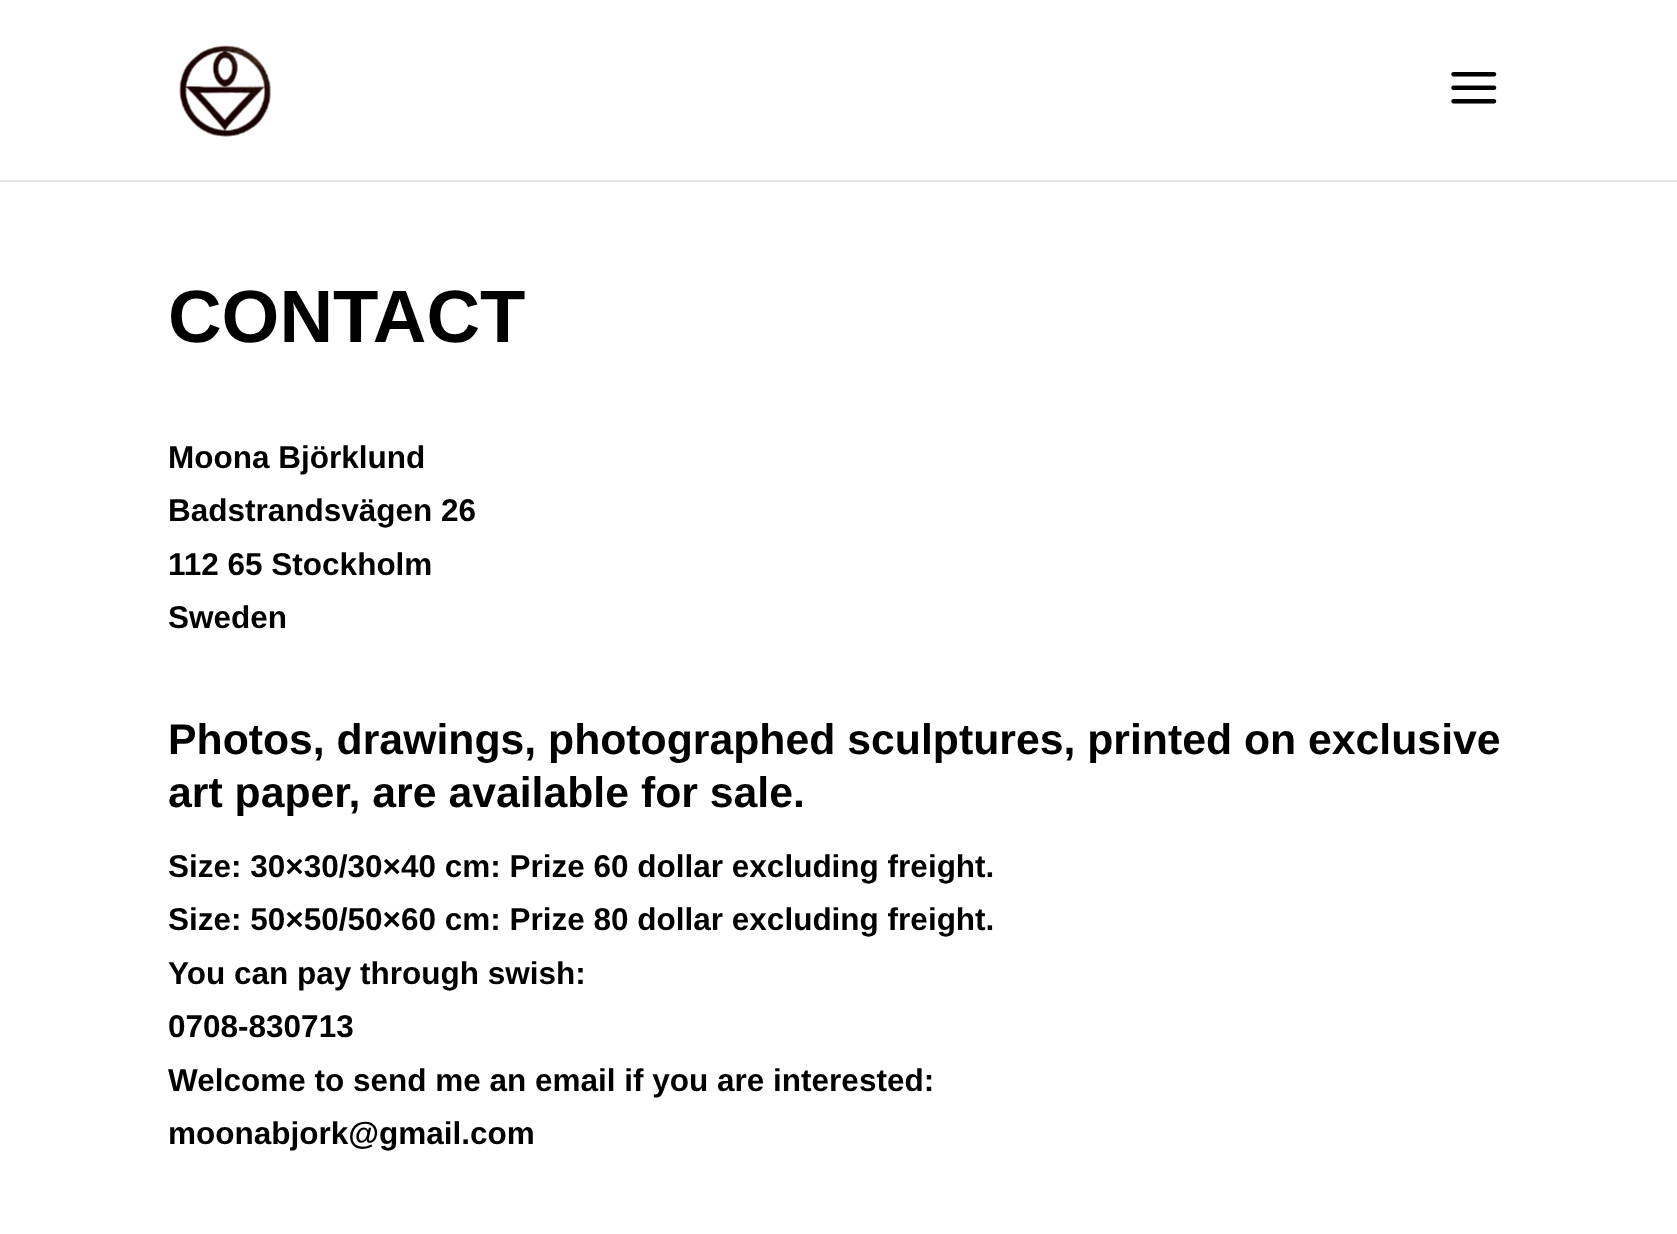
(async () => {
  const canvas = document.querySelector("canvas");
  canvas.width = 1677;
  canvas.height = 1234;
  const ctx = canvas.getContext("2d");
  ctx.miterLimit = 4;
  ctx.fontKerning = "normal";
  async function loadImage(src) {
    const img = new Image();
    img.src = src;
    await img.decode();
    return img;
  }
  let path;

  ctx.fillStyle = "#ffffff";
  ctx.fillRect(0, 0, 1677, 1234);
  ctx.fillStyle = "#e6e6e6";
  path = new Path2D("M0 180V182H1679V2H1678V180Z");
  ctx.fill(path);
  ctx.drawImage(await loadImage("img/1.png"), 179, 45, 92, 92);
  ctx.drawImage(await loadImage("img/2.png"), 1451, 72, 46, 32);
  ctx.font = "bold 74.25px Liberation Sans";
  ctx.fillStyle = "#000000";
  ctx.fillText("CONTACT", 168, 342);
  ctx.font = "bold 31.5px Liberation Sans";
  for (const [text, x, y] of [
    ["Moona Björklund", 168, 468],
    ["Badstrandsvägen 26", 168, 521],
    ["112 65 Stockholm", 168, 575],
    ["Sweden", 168, 628],
  ]) {
    ctx.fillText(text, x, y);
  }
  ctx.font = "bold 42.75px Liberation Sans";
  ctx.fillText("Photos, drawings, photographed sculptures, printed on exclusive", 168, 754);
  ctx.fillText("art paper, are available for sale.", 168, 807);
  ctx.font = "bold 31.5px Liberation Sans";
  for (const [text, x, y] of [
    ["Size: 30×30/30×40 cm: Prize 60 dollar excluding freight.", 168, 877],
    ["Size: 50×50/50×60 cm: Prize 80 dollar excluding freight.", 168, 930],
    ["You can pay through swish:", 168, 984],
    ["0708-830713", 168, 1037],
    ["Welcome to send me an email if you are interested:", 168, 1091],
    ["moonabjork@gmail.com", 168, 1144],
  ]) {
    ctx.fillText(text, x, y);
  }
})();
